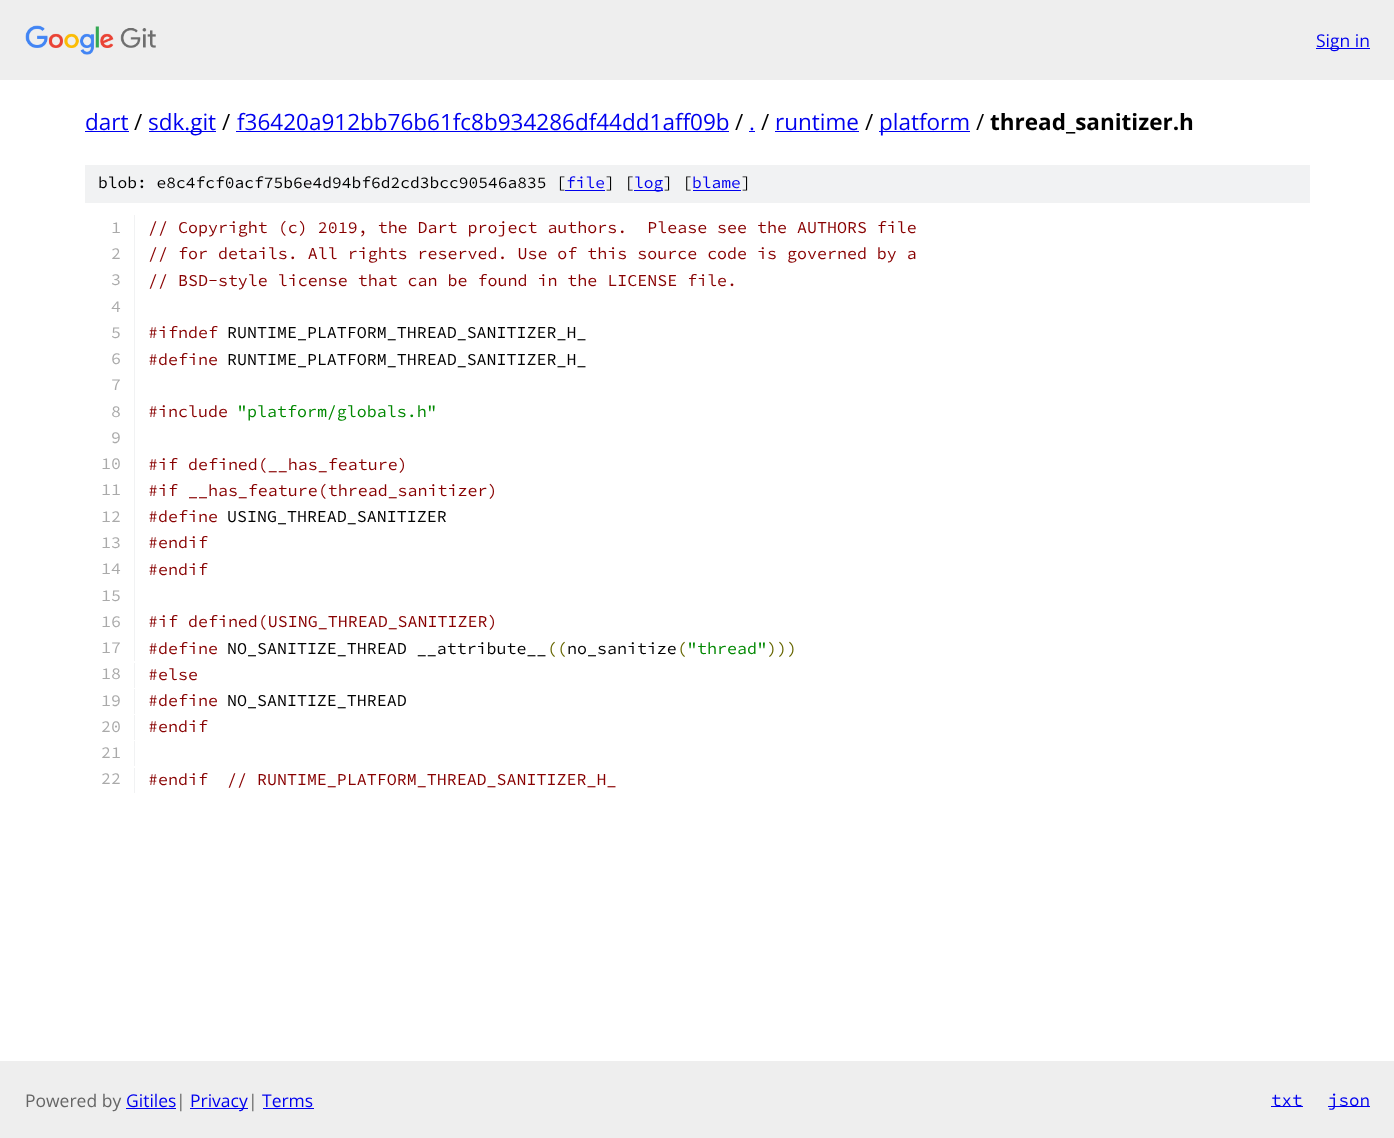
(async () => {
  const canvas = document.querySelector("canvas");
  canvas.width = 1394;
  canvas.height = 1138;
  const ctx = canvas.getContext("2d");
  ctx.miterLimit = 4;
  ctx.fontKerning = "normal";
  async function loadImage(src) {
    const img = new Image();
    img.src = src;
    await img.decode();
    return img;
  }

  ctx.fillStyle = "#ffffff";
  ctx.fillRect(0, 0, 1394, 1138);
  ctx.fillStyle = "#eeeeee";
  ctx.fillRect(0, 0, 1394, 80);
  ctx.drawImage(await loadImage("img/1.png"), 25, 25, 131, 30);
  for (const [x, y, w, h, color] of [
    [1316, 48, 54, 1, "#0000ee"],
    [85, 131, 44, 1, "#0000ee"],
    [149, 131, 67, 1, "#0000ee"],
    [236, 131, 493, 1, "#0000ee"],
    [749, 131, 6, 1, "#0000ee"],
    [775, 131, 84, 1, "#0000ee"],
    [879, 131, 91, 1, "#0000ee"],
    [85, 165, 1225, 38, "#f1f2f3"],
    [565, 190, 40, 1, "#0000ee"],
    [634, 190, 29, 1, "#0000ee"],
    [693, 190, 48, 1, "#0000ee"],
    [134, 215, 1, 446, "#f1f2f3"],
    [134, 663, 1, 25, "#f1f2f3"],
    [134, 689, 1, 25, "#f1f2f3"],
    [134, 715, 1, 25, "#f1f2f3"],
    [134, 741, 1, 25, "#f1f2f3"],
    [134, 768, 1, 25, "#f1f2f3"],
    [0, 1061, 1394, 77, "#eeeeee"],
    [126, 1108, 50, 1, "#0000ee"],
    [190, 1108, 58, 1, "#0000ee"],
    [263, 1108, 51, 1, "#0000ee"],
    [1271, 1106, 32, 1, "#0000ee"],
    [1328, 1106, 42, 1, "#0000ee"],
  ]) {
    ctx.fillStyle = color;
    ctx.fillRect(x, y, w, h);
  }
  ctx.font = "17.5px Open Sans";
  ctx.fillText("Sign in", 1316, 47);
  ctx.font = "22.5px Open Sans";
  ctx.fillText("dart", 85, 130);
  ctx.fillStyle = "#000000";
  ctx.fillText("/", 134, 130);
  ctx.fillStyle = "#0000ee";
  ctx.fillText("sdk.git", 148, 130);
  ctx.fillStyle = "#000000";
  ctx.fillText("/", 222, 130);
  ctx.fillStyle = "#0000ee";
  ctx.fillText("f36420a912bb76b61fc8b934286df44dd1aff09b", 237, 130);
  ctx.fillStyle = "#000000";
  ctx.fillText("/", 735, 130);
  ctx.fillStyle = "#0000ee";
  ctx.fillText(".", 749, 130);
  ctx.fillStyle = "#000000";
  ctx.fillText("/", 761, 130);
  ctx.fillStyle = "#0000ee";
  ctx.fillText("runtime", 775, 130);
  ctx.fillStyle = "#000000";
  ctx.fillText("/", 865, 130);
  ctx.fillStyle = "#0000ee";
  ctx.fillText("platform", 879, 130);
  ctx.fillStyle = "#000000";
  ctx.fillText("/", 976, 130);
  ctx.font = "bold 22.5px Open Sans";
  ctx.fillText("thread_sanitizer.h", 990, 130);
  ctx.font = "200 16.25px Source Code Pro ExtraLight";
  ctx.fillText("blob: e8c4fcf0acf75b6e4d94bf6d2cd3bcc90546a835 [", 98, 188);
  ctx.fillStyle = "#0000ee";
  ctx.fillText("file", 566, 188);
  ctx.fillStyle = "#000000";
  ctx.fillText("] [", 605, 188);
  ctx.fillStyle = "#0000ee";
  ctx.fillText("log", 634, 188);
  ctx.fillStyle = "#000000";
  ctx.fillText("] [", 663, 188);
  ctx.fillStyle = "#0000ee";
  ctx.fillText("blame", 692, 188);
  ctx.fillStyle = "#000000";
  ctx.fillText("]", 741, 188);
  ctx.font = "200 16.65px Source Code Pro ExtraLight";
  ctx.fillStyle = "#aaaaaa";
  ctx.fillText("1", 111, 233);
  ctx.fillStyle = "#880000";
  ctx.fillText("// Copyright (c) 2019, the Dart project authors.  Please see the AUTHORS file", 148, 233);
  ctx.fillStyle = "#aaaaaa";
  ctx.fillText("2", 111, 259);
  ctx.fillStyle = "#880000";
  ctx.fillText("// for details. All rights reserved. Use of this source code is governed by a", 148, 259);
  ctx.fillStyle = "#aaaaaa";
  ctx.fillText("3", 111, 285);
  ctx.fillStyle = "#880000";
  ctx.fillText("// BSD-style license that can be found in the LICENSE file.", 148, 286);
  ctx.fillStyle = "#aaaaaa";
  ctx.fillText("4", 111, 312);
  ctx.fillText("5", 111, 338);
  ctx.fillStyle = "#880000";
  ctx.fillText("#ifndef", 148, 338);
  ctx.fillStyle = "#000000";
  ctx.fillText("RUNTIME_PLATFORM_THREAD_SANITIZER_H_", 227, 338);
  ctx.fillStyle = "#aaaaaa";
  ctx.fillText("6", 111, 364);
  ctx.fillStyle = "#880000";
  ctx.fillText("#define", 148, 365);
  ctx.fillStyle = "#000000";
  ctx.fillText("RUNTIME_PLATFORM_THREAD_SANITIZER_H_", 227, 365);
  ctx.fillStyle = "#aaaaaa";
  ctx.fillText("7", 111, 390);
  ctx.fillText("8", 111, 417);
  ctx.fillStyle = "#880000";
  ctx.fillText("#include", 148, 417);
  ctx.fillStyle = "#008800";
  ctx.fillText("\"platform/globals.h\"", 237, 417);
  ctx.fillStyle = "#aaaaaa";
  ctx.fillText("9", 111, 443);
  ctx.fillText("10", 101, 469);
  ctx.fillStyle = "#880000";
  ctx.fillText("#if defined(__has_feature)", 148, 470);
  ctx.fillStyle = "#aaaaaa";
  ctx.fillText("11", 101, 495);
  ctx.fillStyle = "#880000";
  ctx.fillText("#if __has_feature(thread_sanitizer)", 148, 496);
  ctx.fillStyle = "#aaaaaa";
  ctx.fillText("12", 101, 522);
  ctx.fillStyle = "#880000";
  ctx.fillText("#define", 148, 522);
  ctx.fillStyle = "#000000";
  ctx.fillText("USING_THREAD_SANITIZER", 227, 522);
  ctx.fillStyle = "#aaaaaa";
  ctx.fillText("13", 101, 548);
  ctx.fillStyle = "#880000";
  ctx.fillText("#endif", 148, 548);
  ctx.fillStyle = "#aaaaaa";
  ctx.fillText("14", 101, 574);
  ctx.fillStyle = "#880000";
  ctx.fillText("#endif", 148, 575);
  ctx.fillStyle = "#aaaaaa";
  ctx.fillText("15", 101, 601);
  ctx.fillText("16", 101, 627);
  ctx.fillStyle = "#880000";
  ctx.fillText("#if defined(USING_THREAD_SANITIZER)", 148, 627);
  ctx.fillStyle = "#aaaaaa";
  ctx.fillText("17", 101, 653);
  ctx.fillStyle = "#880000";
  ctx.fillText("#define", 148, 654);
  ctx.fillStyle = "#000000";
  ctx.fillText("NO_SANITIZE_THREAD __attribute__", 227, 654);
  ctx.fillStyle = "#666600";
  ctx.fillText("((", 547, 654);
  ctx.fillStyle = "#000000";
  ctx.fillText("no_sanitize", 567, 654);
  ctx.fillStyle = "#666600";
  ctx.fillText("(", 677, 654);
  ctx.fillStyle = "#008800";
  ctx.fillText("\"thread\"", 687, 654);
  ctx.fillStyle = "#666600";
  ctx.fillText(")))", 767, 654);
  ctx.fillStyle = "#aaaaaa";
  ctx.fillText("18", 101, 679);
  ctx.fillStyle = "#880000";
  ctx.fillText("#else", 148, 680);
  ctx.fillStyle = "#aaaaaa";
  ctx.fillText("19", 101, 706);
  ctx.fillStyle = "#880000";
  ctx.fillText("#define", 148, 706);
  ctx.fillStyle = "#000000";
  ctx.fillText("NO_SANITIZE_THREAD", 227, 706);
  ctx.fillStyle = "#aaaaaa";
  ctx.fillText("20", 101, 732);
  ctx.fillStyle = "#880000";
  ctx.fillText("#endif", 148, 732);
  ctx.fillStyle = "#aaaaaa";
  ctx.fillText("21", 101, 758);
  ctx.fillText("22", 101, 784);
  ctx.fillStyle = "#880000";
  ctx.fillText("#endif", 148, 785);
  ctx.fillText("// RUNTIME_PLATFORM_THREAD_SANITIZER_H_", 227, 785);
  ctx.font = "17.5px Open Sans";
  ctx.fillStyle = "#666666";
  ctx.fillText("Powered by", 25, 1107);
  ctx.fillStyle = "#0000ee";
  ctx.fillText("Gitiles", 126, 1107);
  ctx.fillStyle = "#666666";
  ctx.fillText("|", 176, 1107);
  ctx.fillStyle = "#0000ee";
  ctx.fillText("Privacy", 190, 1107);
  ctx.fillStyle = "#666666";
  ctx.fillText("|", 248, 1107);
  ctx.fillStyle = "#0000ee";
  ctx.fillText("Terms", 262, 1107);
  ctx.font = "200 17.5px Source Code Pro ExtraLight";
  ctx.fillText("txt", 1271, 1106);
  ctx.fillText("json", 1328, 1106);
})();
